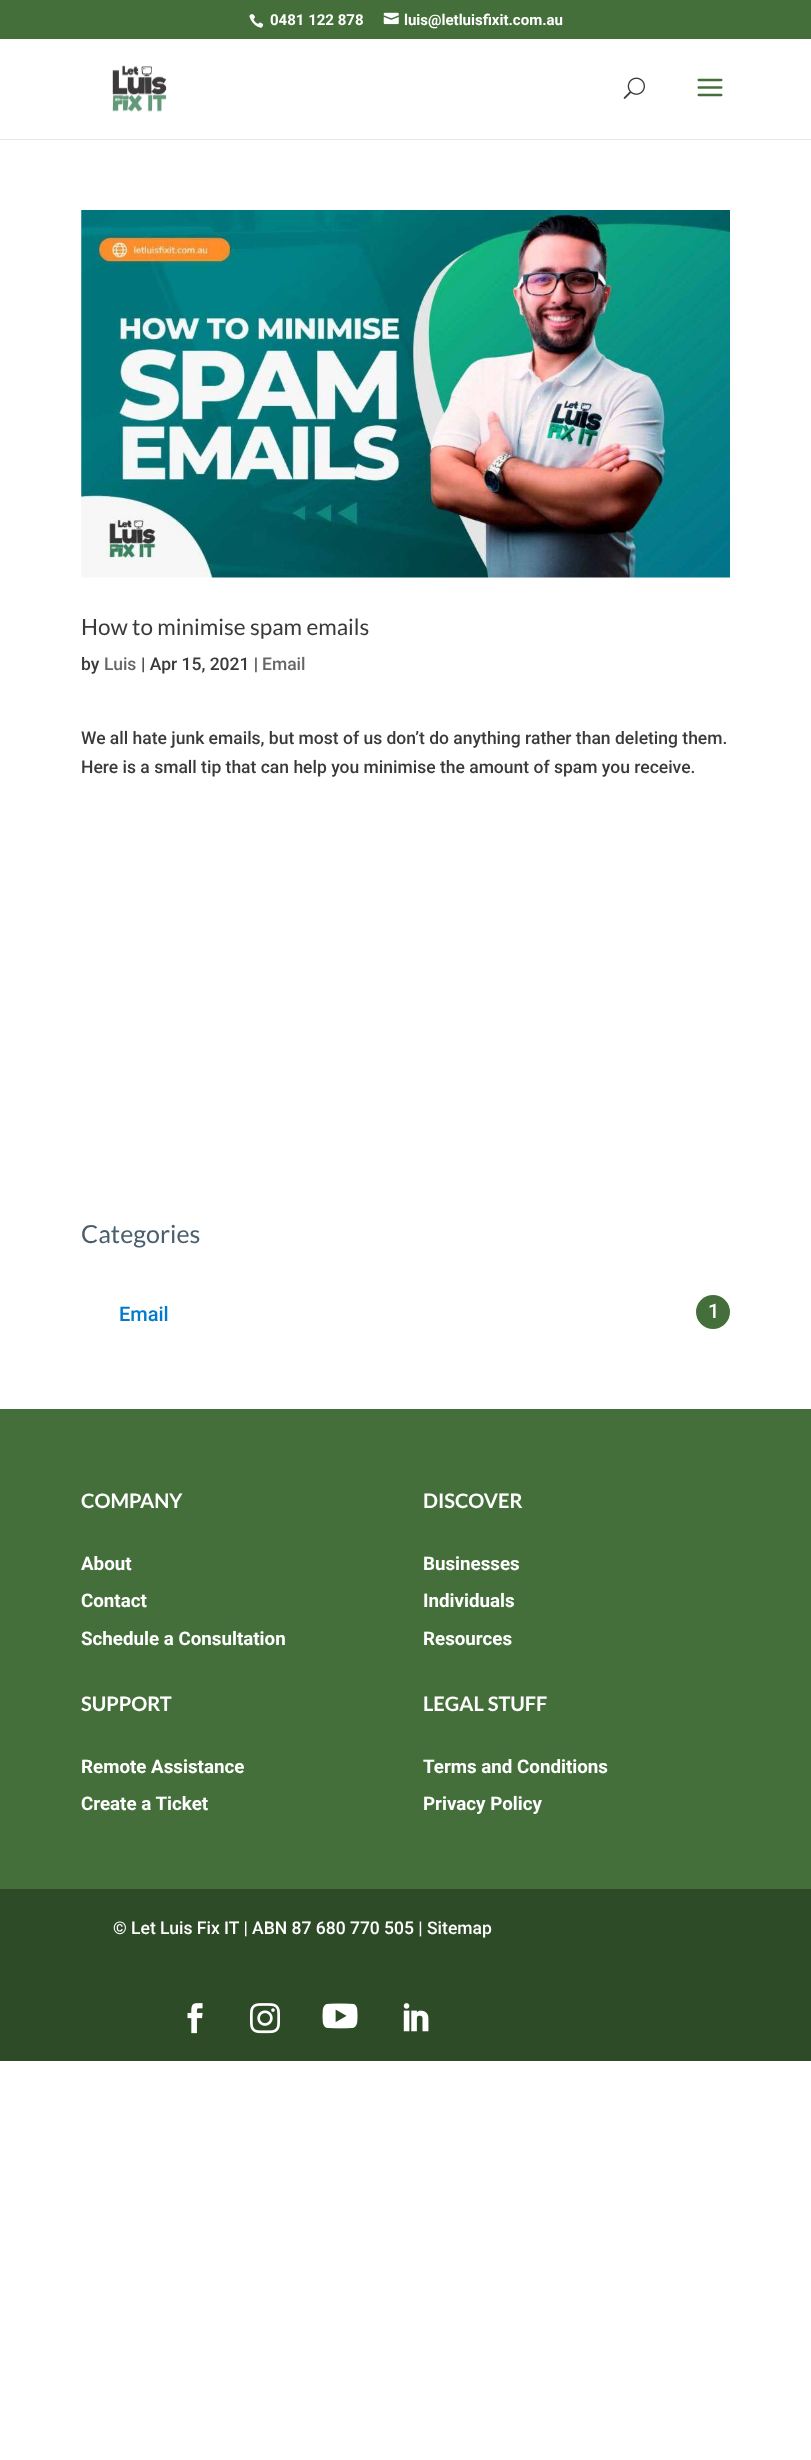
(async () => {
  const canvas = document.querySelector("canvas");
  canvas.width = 811;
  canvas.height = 2460;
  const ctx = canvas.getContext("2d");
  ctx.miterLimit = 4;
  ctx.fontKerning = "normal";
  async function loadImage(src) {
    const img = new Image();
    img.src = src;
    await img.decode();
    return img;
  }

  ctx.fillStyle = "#ffffff";
  ctx.fillRect(0, 0, 811, 2460);
  ctx.fillStyle = "#446f3b";
  ctx.fillRect(0, 0, 811, 39);
  ctx.drawImage(await loadImage("img/1.png"), 249, 14, 15, 14);
  ctx.drawImage(await loadImage("img/2.png"), 383, 12, 16, 13);
  ctx.fillStyle = "#e6e6e6";
  ctx.fillRect(0, 139, 811, 1);
  ctx.drawImage(await loadImage("img/3.png"), 112, 65, 55, 47);
  ctx.drawImage(await loadImage("img/4.png"), 623, 77, 22, 22);
  ctx.drawImage(await loadImage("img/5.png"), 697, 78, 26, 19);
  ctx.drawImage(await loadImage("img/6.png"), 81, 210, 649, 368);
  ctx.fillStyle = "#446f3b";
  ctx.beginPath();
  ctx.arc(713, 1312, 17, 0, Math.PI * 2);
  ctx.fill();
  ctx.fillRect(0, 1409, 811, 480);
  ctx.fillStyle = "#2e4b28";
  ctx.fillRect(0, 1889, 811, 172);
  ctx.drawImage(await loadImage("img/7.png"), 187, 2003, 16, 31);
  ctx.drawImage(await loadImage("img/8.png"), 250, 2003, 30, 31);
  ctx.drawImage(await loadImage("img/9.png"), 322, 2003, 36, 26);
  ctx.drawImage(await loadImage("img/10.png"), 403, 2003, 26, 29);
  ctx.font = "bold 15px Roboto";
  ctx.fillStyle = "#ffffff";
  ctx.fillText("0481 122 878", 270, 25);
  ctx.fillText("luis@letluisfixit.com.au", 404, 25);
  ctx.font = "22.5px Lato";
  ctx.fillStyle = "#3a3a3a";
  ctx.fillText("How to minimise spam emails", 81, 635);
  ctx.font = "500 17.5px Roboto";
  ctx.fillText("by", 81, 670);
  ctx.fillStyle = "#666666";
  ctx.fillText("Luis", 104, 670);
  ctx.fillStyle = "#3a3a3a";
  ctx.fillText("| Apr 15, 2021 |", 141, 670);
  ctx.fillStyle = "#666666";
  ctx.fillText("Email", 262, 670);
  ctx.fillStyle = "#3a3a3a";
  ctx.fillText("We all hate junk emails, but most of us don’t do anything rather than deleting them.", 81, 744);
  ctx.fillText("Here is a small tip that can help you minimise the amount of spam you receive.", 81, 773);
  ctx.font = "25px Lato";
  ctx.fillStyle = "#4a5f6d";
  ctx.fillText("Categories", 81, 1243);
  ctx.font = "500 20px Roboto";
  ctx.fillStyle = "#007acc";
  ctx.fillText("Email", 119, 1321);
  ctx.fillStyle = "#ffffff";
  ctx.fillText("1", 708, 1318);
  ctx.font = "bold 20px Lato";
  ctx.fillText("COMPANY", 81, 1508);
  ctx.font = "bold 18.75px Roboto";
  for (const [text, x, y] of [
    ["About", 81, 1570],
    ["Contact", 81, 1607],
    ["Schedule a Consultation", 81, 1645],
  ]) {
    ctx.fillText(text, x, y);
  }
  ctx.font = "bold 20px Lato";
  ctx.fillText("DISCOVER", 423, 1508);
  ctx.font = "bold 18.75px Roboto";
  for (const [text, x, y] of [
    ["Businesses", 423, 1570],
    ["Individuals", 423, 1607],
    ["Resources", 423, 1645],
  ]) {
    ctx.fillText(text, x, y);
  }
  ctx.font = "bold 20px Lato";
  ctx.fillText("SUPPORT", 81, 1711);
  ctx.font = "bold 18.75px Roboto";
  ctx.fillText("Remote Assistance", 81, 1773);
  ctx.fillText("Create a Ticket", 81, 1810);
  ctx.font = "bold 20px Lato";
  ctx.fillText("LEGAL STUFF", 423, 1711);
  ctx.font = "bold 18.75px Roboto";
  ctx.fillText("Terms and Conditions", 423, 1773);
  ctx.fillText("Privacy Policy", 423, 1810);
  ctx.font = "500 17.5px Roboto";
  ctx.fillText("© Let Luis Fix IT | ABN 87 680 770 505 | Sitemap", 113, 1934);
})();
